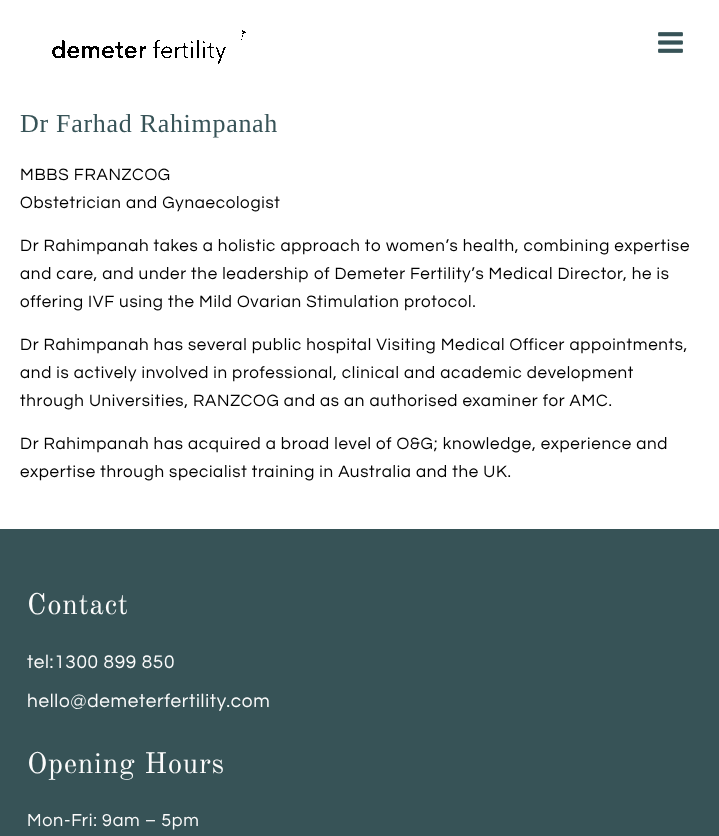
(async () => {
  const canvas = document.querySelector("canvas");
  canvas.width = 719;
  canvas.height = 836;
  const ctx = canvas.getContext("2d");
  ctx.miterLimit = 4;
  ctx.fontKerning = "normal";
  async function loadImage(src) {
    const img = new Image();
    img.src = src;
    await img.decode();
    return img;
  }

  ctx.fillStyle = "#ffffff";
  ctx.fillRect(0, 0, 719, 836);
  ctx.drawImage(await loadImage("img/1.png"), 52, 30, 194, 34);
  ctx.drawImage(await loadImage("img/2.png"), 658, 32, 25, 21);
  ctx.fillStyle = "#375357";
  ctx.fillRect(0, 529, 719, 307);
  ctx.letterSpacing = "0.7px";
  ctx.font = "26px Liberation Serif";
  ctx.fillText("Dr Farhad Rahimpanah", 20, 132);
  ctx.font = "17px Questrial";
  ctx.fillStyle = "#000000";
  for (const [text, x, y] of [
    ["MBBS FRANZCOG", 20, 180],
    ["Obstetrician and Gynaecologist", 20, 208],
    ["Dr Rahimpanah takes a holistic approach to women’s health, combining expertise", 20, 251],
    ["and care, and under the leadership of Demeter Fertility’s Medical Director, he is", 20, 279],
    ["offering IVF using the Mild Ovarian Stimulation protocol.", 20, 307],
    ["Dr Rahimpanah has several public hospital Visiting Medical Officer appointments,", 20, 350],
    ["and is actively involved in professional, clinical and academic development", 20, 378],
    ["through Universities, RANZCOG and as an authorised examiner for AMC.", 20, 406],
    ["Dr Rahimpanah has acquired a broad level of O&G; knowledge, experience and", 20, 449],
    ["expertise through specialist training in Australia and the UK.", 20, 477],
  ]) {
    ctx.fillText(text, x, y);
  }
  ctx.font = "29px Old Standard TT";
  ctx.fillStyle = "#fcfcfc";
  ctx.fillText("Contact", 27, 614);
  ctx.font = "19px Questrial";
  ctx.fillText("tel:1300 899 850", 27, 668);
  ctx.fillText("hello@demeterfertility.com", 27, 707);
  ctx.font = "29px Old Standard TT";
  ctx.fillText("Opening Hours", 27, 773);
  ctx.font = "18px Questrial";
  ctx.fillText("Mon-Fri: 9am – 5pm", 27, 826);
})();
